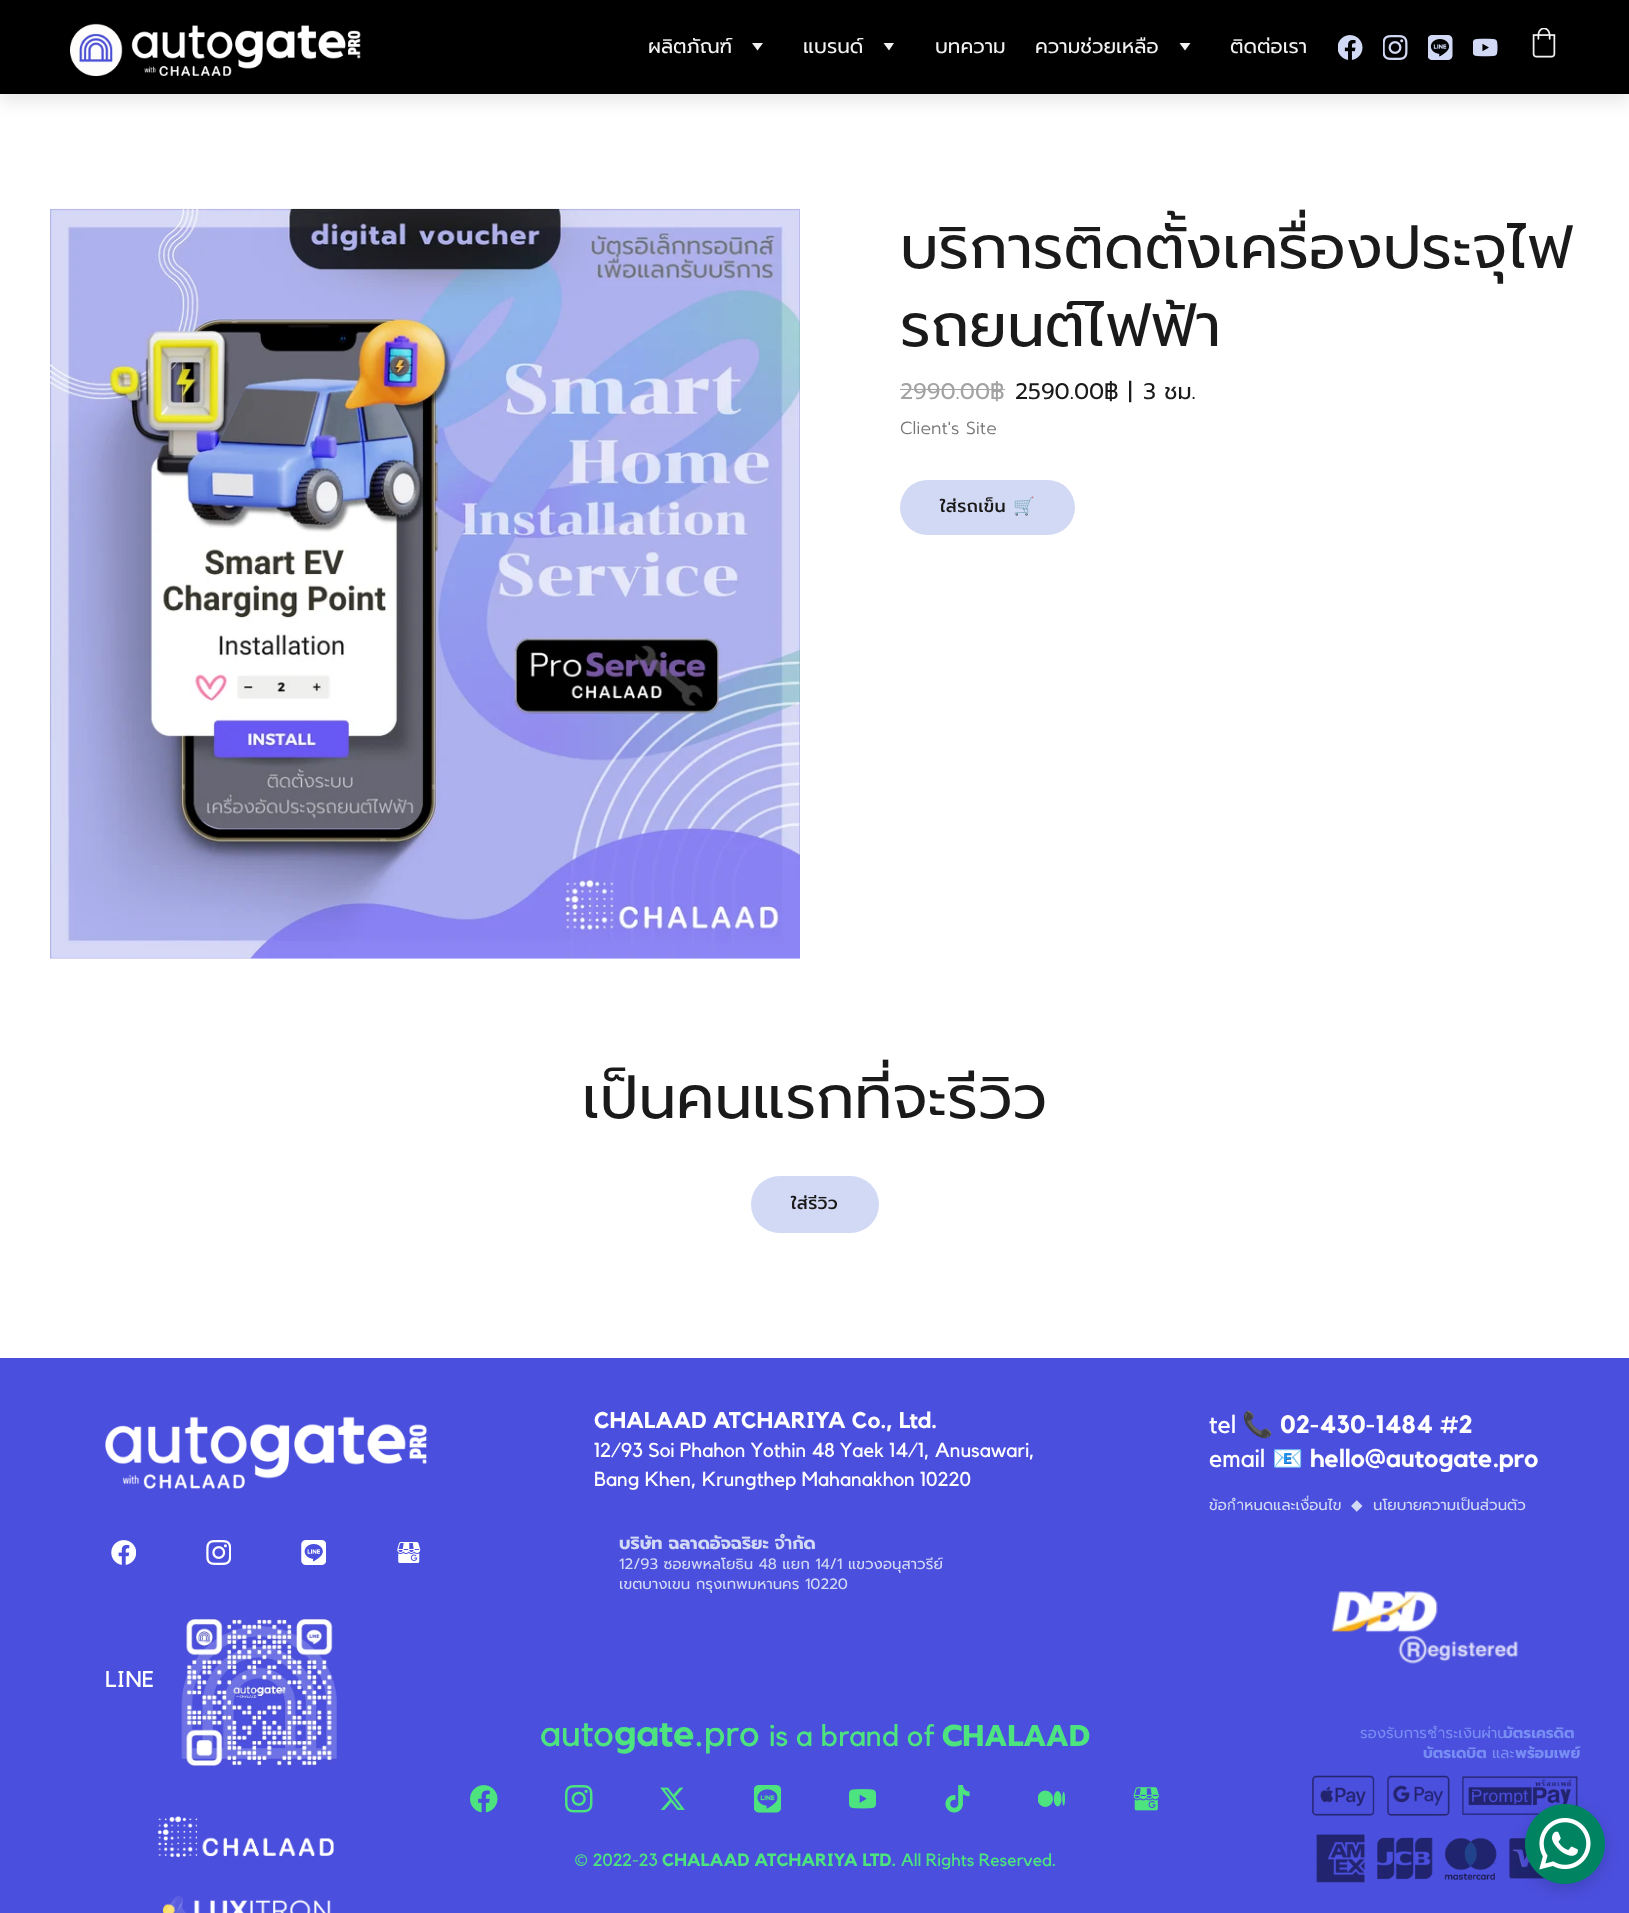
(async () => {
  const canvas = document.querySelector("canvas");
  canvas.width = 1629;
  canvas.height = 1913;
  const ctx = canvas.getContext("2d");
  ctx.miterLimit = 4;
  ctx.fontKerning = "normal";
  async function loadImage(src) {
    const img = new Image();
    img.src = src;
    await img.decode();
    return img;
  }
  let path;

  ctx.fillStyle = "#ffffff";
  ctx.fillRect(0, 0, 1629, 1913);
  ctx.fillStyle = "rgba(0, 0, 0, 0.1)";
  ctx.filter = "blur(9px)";
  ctx.beginPath();
  ctx.rect(0, 8, 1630, 93);
  ctx.fill();
  ctx.filter = "none";
  ctx.fillStyle = "#000000";
  ctx.fillRect(0, 0, 1629, 94);
  ctx.drawImage(await loadImage("img/1.png"), 70, 23, 291, 54);
  ctx.fillStyle = "#f1f1f1";
  path = new Path2D("M757.5 50.5L752 43H763Z");
  ctx.fill(path);
  path = new Path2D("M889 50.5L883.5 43H894Z");
  ctx.fill(path);
  path = new Path2D("M1185 50.5L1179.5 43H1190.5Z");
  ctx.fill(path);
  ctx.drawImage(await loadImage("img/2.png"), 1338, 35, 25, 25);
  ctx.drawImage(await loadImage("img/3.png"), 1383, 35, 25, 25);
  ctx.drawImage(await loadImage("img/4.png"), 1428, 35, 25, 25);
  ctx.drawImage(await loadImage("img/5.png"), 1473, 38, 25, 19);
  ctx.drawImage(await loadImage("img/6.png"), 1532, 28, 24, 30);
  ctx.drawImage(await loadImage("img/7.png"), 50, 208, 750, 751);
  ctx.fillStyle = "#a3a3a3";
  ctx.fillRect(900, 389, 105, 1);
  ctx.fillStyle = "#d2d9f5";
  ctx.beginPath();
  ctx.roundRect(900, 480, 175, 55, 27.5);
  ctx.fill();
  ctx.beginPath();
  ctx.roundRect(751, 1176, 128, 57, 28.5);
  ctx.fill();
  ctx.fillStyle = "#4b4fdd";
  ctx.fillRect(0, 1358, 1629, 555);
  ctx.drawImage(await loadImage("img/8.png"), 105, 1416, 322, 73);
  ctx.drawImage(await loadImage("img/9.png"), 111, 1540, 25, 25);
  ctx.drawImage(await loadImage("img/10.png"), 206, 1540, 25, 25);
  ctx.drawImage(await loadImage("img/11.png"), 301, 1540, 25, 25);
  ctx.drawImage(await loadImage("img/12.png"), 397, 1542, 24, 21);
  ctx.drawImage(await loadImage("img/13.png"), 181, 1618, 156, 149);
  ctx.drawImage(await loadImage("img/14.png"), 1331, 1591, 187, 73);
  ctx.drawImage(await loadImage("img/15.png"), 470, 1785, 28, 28);
  ctx.drawImage(await loadImage("img/16.png"), 565, 1785, 28, 28);
  ctx.drawImage(await loadImage("img/17.png"), 660, 1787, 25, 23);
  ctx.drawImage(await loadImage("img/18.png"), 754, 1785, 27, 28);
  ctx.drawImage(await loadImage("img/19.png"), 849, 1789, 27, 20);
  ctx.drawImage(await loadImage("img/20.png"), 945, 1785, 25, 28);
  ctx.drawImage(await loadImage("img/21.png"), 1038, 1790, 27, 17);
  ctx.drawImage(await loadImage("img/22.png"), 1133, 1787, 26, 24);
  ctx.drawImage(await loadImage("img/23.png"), 1312, 1775, 266, 108);
  ctx.drawImage(await loadImage("img/24.png"), 157, 1816, 177, 42);
  ctx.drawImage(await loadImage("img/25.png"), 162, 1896, 169, 17);
  ctx.fillStyle = "rgba(0, 0, 0, 0.15)";
  ctx.filter = "blur(7.5px)";
  ctx.beginPath();
  ctx.roundRect(1525, 1809, 80, 80, 40);
  ctx.fill();
  ctx.filter = "none";
  ctx.drawImage(await loadImage("img/26.png"), 1525, 1804, 80, 80);
  ctx.font = "20px Prompt";
  ctx.fillStyle = "#f1f1f1";
  for (const [text, x, y] of [
    ["ผลิตภัณฑ์", 648, 53],
    ["แบรนด์", 803, 53],
    ["บทความ", 935, 53],
    ["ความช่วยเหลือ", 1035, 53],
    ["ติดต่อเรา", 1230, 53],
  ]) {
    ctx.fillText(text, x, y);
  }
  ctx.font = "60px Prompt";
  ctx.fillStyle = "#1a1a1a";
  ctx.fillText("บริการติดตั้งเครื่องประจุไฟ", 900, 268);
  ctx.fillText("รถยนต์ไฟฟ้า", 900, 346);
  ctx.font = "22.5px Prompt";
  ctx.fillStyle = "#a3a3a3";
  ctx.fillText("2990.00฿", 900, 399);
  ctx.fillStyle = "#1a1a1a";
  for (const [text, x, y] of [
    ["2590.00฿", 1015, 399],
    ["|", 1128, 399],
    ["3 ชม.", 1143, 399],
  ]) {
    ctx.fillText(text, x, y);
  }
  ctx.font = "300 17.5px Prompt";
  ctx.fillStyle = "#767676";
  ctx.fillText("Client's Site", 900, 434);
  ctx.letterSpacing = "0.25px";
  ctx.font = "500 17.5px Prompt";
  ctx.fillStyle = "#1a1a1a";
  ctx.fillText("ใส่รถเข็น", 940, 512);
  ctx.font = "17.5px Noto Color Emoji";
  ctx.fillText("🛒", 1013, 512);
  ctx.letterSpacing = "0px";
  ctx.font = "60px Prompt";
  ctx.fillText("เป็นคนแรกที่จะรีวิว", 582, 1118);
  ctx.letterSpacing = "0.25px";
  ctx.font = "500 17.5px Prompt";
  ctx.fillText("ใส่รีวิว", 791, 1209);
  ctx.letterSpacing = "0px";
  ctx.font = "bold 22.5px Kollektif";
  ctx.fillStyle = "#ffffff";
  ctx.fillText("CHALAAD ATCHARIYA Co., Ltd.", 594, 1428);
  ctx.font = "20px Kollektif";
  ctx.fillText("12/93 Soi Phahon Yothin 48 Yaek 14/1, Anusawari,", 594, 1457);
  ctx.fillText("Bang Khen, Krungthep Mahanakhon 10220", 594, 1486);
  ctx.font = "25px Kollektif";
  ctx.fillText("tel", 1209, 1433);
  ctx.font = "25px Noto Color Emoji";
  ctx.fillText("📞", 1242, 1433);
  ctx.font = "bold 25px Kollektif";
  ctx.fillText("02-430-1484 #2", 1280, 1433);
  ctx.font = "25px Kollektif";
  ctx.fillText("email", 1209, 1467);
  ctx.font = "25px Noto Color Emoji";
  ctx.fillText("📧", 1272, 1467);
  ctx.font = "bold 25px Kollektif";
  ctx.fillText("hello@autogate.pro", 1310, 1467);
  ctx.font = "15px Prompt";
  ctx.fillStyle = "#d2d9f5";
  ctx.fillText("ข้อกำหนดและเงื่อนไข", 1209, 1510);
  ctx.font = "15px DejaVu Sans";
  ctx.fillText("◆", 1351, 1510);
  ctx.font = "15px Prompt";
  ctx.fillText("นโยบายความเป็นส่วนตัว", 1373, 1510);
  ctx.font = "bold 17.5px Prompt";
  ctx.fillText("บริษัท ฉลาดอัจฉริยะ จำกัด", 619, 1549);
  ctx.font = "15px Prompt";
  ctx.fillText("12/93 ซอยพหลโยธิน 48 แยก 14/1 แขวงอนุสาวรีย์", 619, 1569);
  ctx.fillText("เขตบางเขน กรุงเทพมหานคร 10220", 619, 1589);
  ctx.font = "22.5px Kollektif";
  ctx.fillStyle = "#ffffff";
  ctx.fillText("LINE", 105, 1687);
  ctx.font = "37.5px Kollektif";
  ctx.fillStyle = "#4de480";
  ctx.fillText("auto", 540, 1746);
  ctx.font = "bold 37.5px Kollektif";
  ctx.fillText("gate", 614, 1746);
  ctx.font = "37.5px Kollektif";
  ctx.fillText(".pro", 695, 1746);
  ctx.font = "30px Kollektif";
  ctx.fillText("is a brand of", 769, 1746);
  ctx.font = "bold 30px Prompt";
  ctx.fillText("CHALAAD", 942, 1746);
  ctx.font = "15px Prompt";
  ctx.fillStyle = "#778df3";
  ctx.fillText("รองรับการชำระเงินผ่าน", 1360, 1738);
  ctx.font = "bold 15px Prompt";
  ctx.fillText("บัตรเครดิต", 1503, 1738);
  ctx.fillText("บัตรเดบิต", 1423, 1758);
  ctx.font = "15px Prompt";
  ctx.fillText("และ", 1492, 1758);
  ctx.font = "bold 15px Prompt";
  ctx.fillText("พร้อมเพย์", 1515, 1758);
  ctx.font = "17.5px Kollektif";
  ctx.fillStyle = "#4de480";
  ctx.fillText("© 2022-23", 574, 1866);
  ctx.font = "bold 17.5px Kollektif";
  ctx.fillText("CHALAAD ATCHARIYA LTD.", 662, 1866);
  ctx.font = "17.5px Kollektif";
  ctx.fillText("All Rights Reserved.", 901, 1866);
})();
